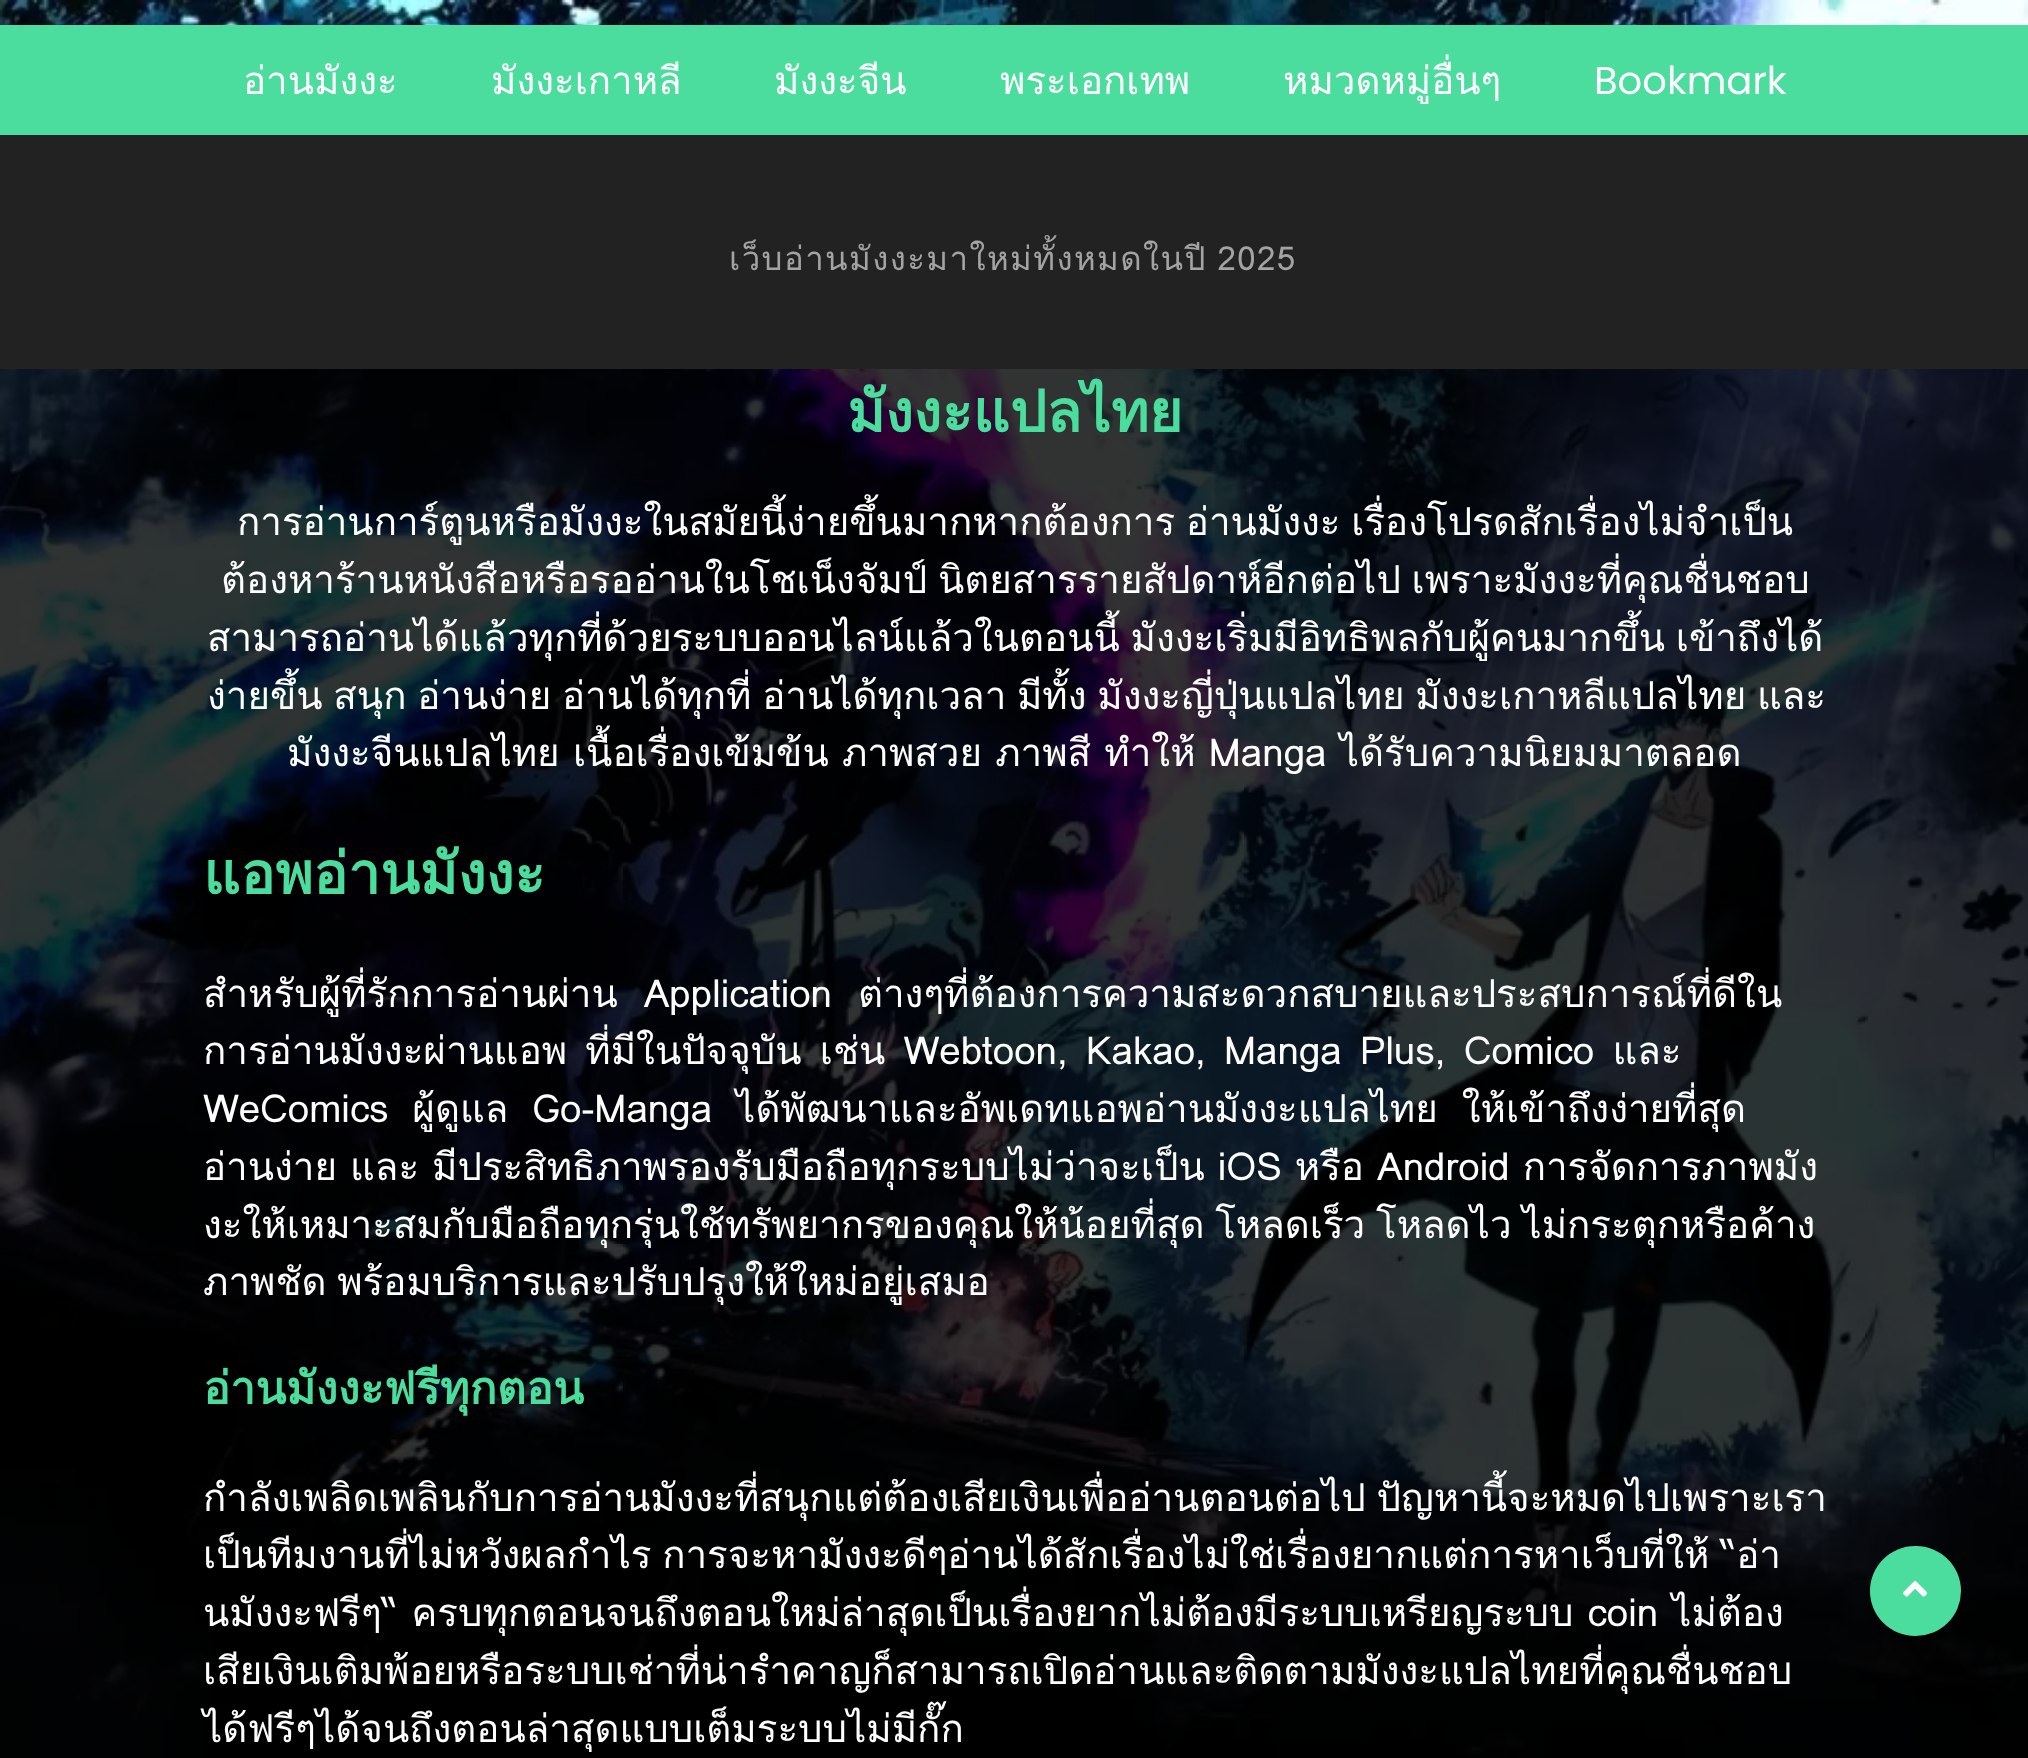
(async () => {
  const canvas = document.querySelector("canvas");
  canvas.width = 2028;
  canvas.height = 1758;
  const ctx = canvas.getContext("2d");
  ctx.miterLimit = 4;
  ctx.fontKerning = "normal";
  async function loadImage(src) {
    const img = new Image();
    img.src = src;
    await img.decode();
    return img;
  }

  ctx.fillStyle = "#ffffff";
  ctx.fillRect(0, 0, 2028, 1758);
  ctx.drawImage(await loadImage("img/1.png"), 0, 0, 2028, 1758);
  for (const [x, y, w, h, color] of [
    [0, 135, 2028, 234, "#222222"],
    [0, 25, 2028, 110, "#4bdd9e"],
    [0, 369, 2028, 1389, "rgba(0, 0, 0, 0.8)"],
  ]) {
    ctx.fillStyle = color;
    ctx.fillRect(x, y, w, h);
  }
  ctx.fillStyle = "#4bdd9e";
  ctx.beginPath();
  ctx.roundRect(1870, 1546, 91, 90, 45);
  ctx.fill();
  ctx.drawImage(await loadImage("img/2.png"), 1903, 1581, 25, 16);
  ctx.font = "38.5px Loma";
  ctx.fillStyle = "#ffffff";
  for (const [text, x, y] of [
    ["อ่านมังงะ", 243, 94],
    ["มังงะเกาหลี", 491, 94],
    ["มังงะจีน", 774, 94],
    ["พระเอกเทพ", 1000, 94],
    ["หมวดหมู่อื่นๆ", 1283, 94],
  ]) {
    ctx.fillText(text, x, y);
  }
  ctx.font = "38.5px Poppins";
  ctx.fillText("Bookmark", 1594, 94);
  ctx.letterSpacing = "1.4px";
  ctx.wordSpacing = "-2px";
  ctx.font = "33px Loma";
  ctx.fillStyle = "#a3a3a3";
  ctx.fillText("เว็บอ่านมังงะมาใหม่ทั้งหมดในปี 2025", 729, 270);
  ctx.letterSpacing = "0px";
  ctx.wordSpacing = "0px";
  ctx.font = "bold 57.75px Loma";
  ctx.fillStyle = "#4bdd9e";
  ctx.fillText("มังงะแปลไทย", 847, 432);
  ctx.wordSpacing = "-2.25px";
  ctx.font = "38.5px Loma";
  ctx.fillStyle = "#ffffff";
  for (const [text, x, y] of [
    ["การอ่านการ์ตูนหรือมังงะในสมัยนี้ง่ายขึ้นมากหากต้องการ อ่านมังงะ เรื่องโปรดสักเรื่องไม่จำเป็น", 237, 535],
    ["ต้องหาร้านหนังสือหรือรออ่านในโชเน็งจัมป์ นิตยสารรายสัปดาห์อีกต่อไป เพราะมังงะที่คุณชื่นชอบ", 221, 593],
    ["สามารถอ่านได้แล้วทุกที่ด้วยระบบออนไลน์แล้วในตอนนี้ มังงะเริ่มมีอิทธิพลกับผู้คนมากขึ้น เข้าถึงได้", 207, 651],
    ["ง่ายขึ้น สนุก อ่านง่าย อ่านได้ทุกที่ อ่านได้ทุกเวลา มีทั้ง มังงะญี่ปุ่นแปลไทย มังงะเกาหลีแปลไทย และ", 207, 709],
  ]) {
    ctx.fillText(text, x, y);
  }
  ctx.wordSpacing = "0.25px";
  ctx.fillText("มังงะจีนแปลไทย เนื้อเรื่องเข้มข้น ภาพสวย ภาพสี ทำให้ Manga ได้รับความนิยมมาตลอด", 287, 766);
  ctx.wordSpacing = "0px";
  ctx.font = "bold 57.75px Loma";
  ctx.fillStyle = "#4bdd9e";
  ctx.fillText("แอพอ่านมังงะ", 203, 894);
  ctx.wordSpacing = "13px";
  ctx.font = "38.5px Loma";
  ctx.fillStyle = "#ffffff";
  ctx.fillText("สำหรับผู้ที่รักการอ่านผ่าน Application ต่างๆที่ต้องการความสะดวกสบายและประสบการณ์ที่ดีใน", 203, 1007);
  ctx.wordSpacing = "5.25px";
  ctx.fillText("การอ่านมังงะผ่านแอพ ที่มีในปัจจุบัน เช่น Webtoon, Kakao, Manga Plus, Comico และ", 203, 1064);
  ctx.wordSpacing = "11px";
  ctx.fillText("WeComics ผู้ดูแล Go-Manga ได้พัฒนาและอัพเดทแอพอ่านมังงะแปลไทย ให้เข้าถึงง่ายที่สุด", 203, 1122);
  ctx.wordSpacing = "0px";
  ctx.fillText("อ่านง่าย และ มีประสิทธิภาพรองรับมือถือทุกระบบไม่ว่าจะเป็น iOS หรือ Android การจัดการภาพมัง", 203, 1180);
  ctx.wordSpacing = "-2.25px";
  ctx.fillText("งะให้เหมาะสมกับมือถือทุกรุ่นใช้ทรัพยากรของคุณให้น้อยที่สุด โหลดเร็ว โหลดไว ไม่กระตุกหรือค้าง", 203, 1238);
  ctx.fillText("ภาพชัด พร้อมบริการและปรับปรุงให้ใหม่อยู่เสมอ", 203, 1295);
  ctx.wordSpacing = "0px";
  ctx.font = "bold 45px Loma";
  ctx.fillStyle = "#4bdd9e";
  ctx.fillText("อ่านมังงะฟรีทุกตอน", 203, 1404);
  ctx.wordSpacing = "-2.25px";
  ctx.font = "38.5px Loma";
  ctx.fillStyle = "#ffffff";
  ctx.fillText("กำลังเพลิดเพลินกับการอ่านมังงะที่สนุกแต่ต้องเสียเงินเพื่ออ่านตอนต่อไป ปัญหานี้จะหมดไปเพราะเรา", 203, 1511);
  ctx.fillText("เป็นทีมงานที่ไม่หวังผลกำไร การจะหามังงะดีๆอ่านได้สักเรื่องไม่ใช่เรื่องยากแต่การหาเว็บที่ให้ “อ่า", 203, 1568);
  ctx.wordSpacing = "1px";
  ctx.fillText("นมังงะฟรีๆ“ ครบทุกตอนจนถึงตอนใหม่ล่าสุดเป็นเรื่องยากไม่ต้องมีระบบเหรียญระบบ coin ไม่ต้อง", 203, 1626);
  ctx.wordSpacing = "0px";
  ctx.fillText("เสียเงินเติมพ้อยหรือระบบเช่าที่น่ารำคาญก็สามารถเปิดอ่านและติดตามมังงะแปลไทยที่คุณชื่นชอบ", 203, 1684);
  ctx.fillText("ได้ฟรีๆได้จนถึงตอนล่าสุดแบบเต็มระบบไม่มีกั๊ก", 203, 1742);
})();
